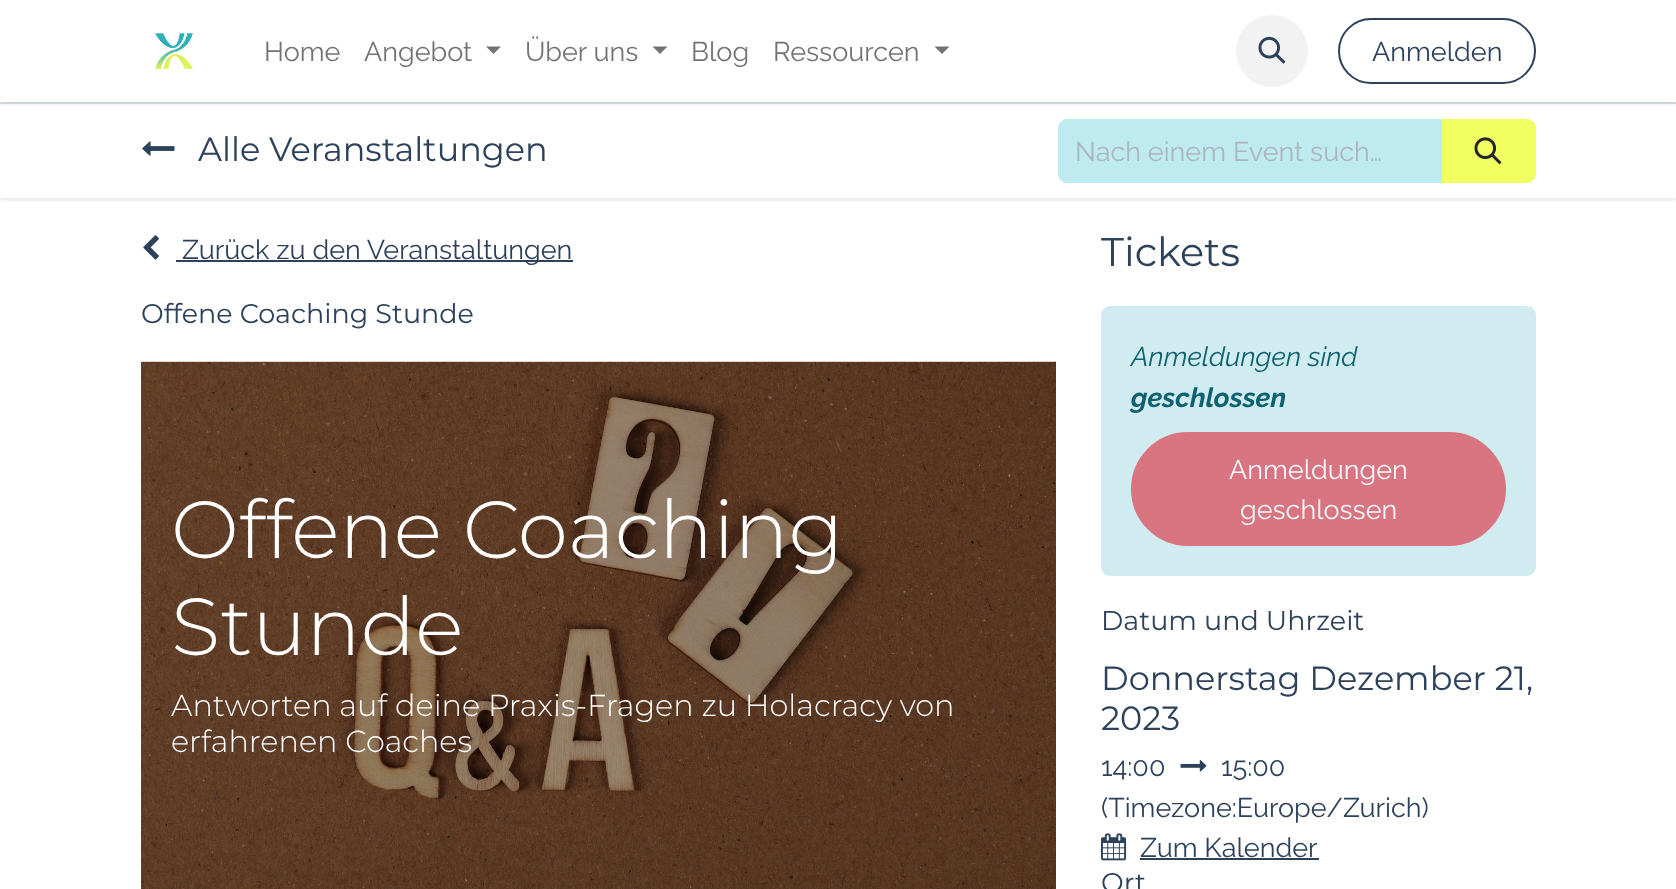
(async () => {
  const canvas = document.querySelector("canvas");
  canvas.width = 1676;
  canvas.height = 889;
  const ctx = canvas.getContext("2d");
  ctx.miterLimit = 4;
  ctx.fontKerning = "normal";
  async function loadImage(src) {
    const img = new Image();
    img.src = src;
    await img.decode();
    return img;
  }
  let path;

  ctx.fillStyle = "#ffffff";
  ctx.fillRect(0, 0, 1676, 889);
  ctx.save();
  ctx.beginPath();
  ctx.rect(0, 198, 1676, 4);
  ctx.clip();
  ctx.fillStyle = "rgba(0, 0, 0, 0.1)";
  ctx.filter = "blur(2px)";
  ctx.beginPath();
  ctx.rect(0, 104, 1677, 96);
  ctx.fill();
  ctx.filter = "none";
  ctx.restore();
  ctx.fillStyle = "#e0e3e6";
  ctx.fillRect(0, 102, 1676, 2);
  ctx.fillStyle = "rgba(0, 0, 0, 0.1)";
  ctx.filter = "blur(2px)";
  ctx.beginPath();
  ctx.rect(0, 2, 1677, 102);
  ctx.fill();
  ctx.filter = "none";
  ctx.fillStyle = "#ffffff";
  ctx.fillRect(0, 0, 1676, 102);
  ctx.drawImage(await loadImage("img/1.png"), 155, 33, 38, 36);
  ctx.fillStyle = "#737373";
  path = new Path2D("M486 46.5H501L493.5 54Z");
  ctx.fill(path);
  path = new Path2D("M652.5 46.5H667.5L660 54Z");
  ctx.fill(path);
  path = new Path2D("M934.5 46.5H949.5L942 54Z");
  ctx.fill(path);
  ctx.fillStyle = "#f2f2f2";
  ctx.beginPath();
  ctx.arc(1272, 51, 36, 0, Math.PI * 2);
  ctx.fill();
  ctx.drawImage(await loadImage("img/2.png"), 1258, 36, 28, 28);
  ctx.beginPath();
  ctx.roundRect(1339, 19, 196, 64, 32);
  ctx.strokeStyle = "#2d425a";
  ctx.lineWidth = 2;
  ctx.stroke();
  ctx.drawImage(await loadImage("img/3.png"), 142, 141, 33, 15);
  ctx.fillStyle = "#bdebef";
  ctx.beginPath();
  ctx.roundRect(1058, 119, 385, 64, [9, 0, 0, 9]);
  ctx.fill();
  ctx.fillStyle = "#f2ff62";
  ctx.beginPath();
  ctx.roundRect(1443, 120, 92, 62, [0, 8, 8, 0]);
  ctx.fill();
  ctx.strokeStyle = "#f2ff62";
  ctx.stroke();
  ctx.drawImage(await loadImage("img/4.png"), 1474, 137, 28, 28);
  ctx.drawImage(await loadImage("img/5.png"), 143, 235, 16, 25);
  ctx.fillStyle = "#2d425a";
  ctx.fillRect(176, 260, 397, 2);
  ctx.drawImage(await loadImage("img/6.png"), 141, 361, 915, 528);
  ctx.fillStyle = "#d1ecf1";
  ctx.beginPath();
  ctx.roundRect(1101, 306, 435, 270, 9);
  ctx.fill();
  ctx.fillStyle = "#d87581";
  ctx.beginPath();
  ctx.roundRect(1132, 433, 373, 112, 56);
  ctx.fill();
  ctx.strokeStyle = "#d87581";
  ctx.stroke();
  ctx.drawImage(await loadImage("img/7.png"), 1180, 760, 27, 12);
  ctx.drawImage(await loadImage("img/8.png"), 1101, 833, 26, 28);
  ctx.fillStyle = "#2d425a";
  ctx.fillRect(1140, 858, 179, 2);
  ctx.font = "27px Raleway";
  ctx.fillStyle = "#737373";
  for (const [text, x, y] of [
    ["Home", 264, 61],
    ["Angebot", 364, 61],
    ["Über uns", 525, 61],
    ["Blog", 691, 61],
    ["Ressourcen", 773, 61],
  ]) {
    ctx.fillText(text, x, y);
  }
  ctx.fillStyle = "#2d425a";
  ctx.fillText("Anmelden", 1372, 61);
  ctx.font = "33.5px Montserrat";
  ctx.fillText("Alle Veranstaltungen", 198, 161);
  ctx.font = "27px Raleway";
  ctx.fillStyle = "#adb5bd";
  ctx.fillText("Nach einem Event such…", 1075, 161);
  ctx.fillStyle = "#2d425a";
  ctx.fillText("Zurück zu den Veranstaltungen", 182, 259);
  ctx.font = "27px Montserrat";
  ctx.fillText("Offene Coaching Stunde", 141, 323);
  ctx.font = "300 80.75px Montserrat";
  ctx.fillStyle = "#ffffff";
  ctx.fillText("Offene Coaching", 171, 558);
  ctx.fillText("Stunde", 171, 655);
  ctx.font = "300 30.35px Montserrat";
  ctx.fillText("Antworten auf deine Praxis-Fragen zu Holacracy von", 171, 716);
  ctx.fillText("erfahrenen Coaches", 171, 752);
  ctx.font = "40px Montserrat";
  ctx.fillStyle = "#2d425a";
  ctx.fillText("Tickets", 1101, 266);
  ctx.font = "italic 27px Raleway";
  ctx.fillStyle = "#0e616e";
  ctx.fillText("Anmeldungen sind", 1131, 366);
  ctx.font = "italic bold 27px Raleway";
  ctx.fillText("geschlossen", 1131, 407);
  ctx.font = "27px Raleway";
  ctx.fillStyle = "#eff8fa";
  ctx.fillText("Anmeldungen", 1229, 479);
  ctx.fillText("geschlossen", 1240, 519);
  ctx.font = "27px Montserrat";
  ctx.fillStyle = "#2d425a";
  ctx.fillText("Datum und Uhrzeit", 1101, 630);
  ctx.font = "33.5px Montserrat";
  ctx.fillText("Donnerstag Dezember 21,", 1101, 690);
  ctx.fillText("2023", 1101, 730);
  ctx.font = "27px Raleway";
  for (const [text, x, y] of [
    ["14:00", 1101, 776],
    ["15:00", 1221, 776],
    ["(Timezone:Europe/Zurich)", 1101, 817],
    ["Zum Kalender", 1140, 857],
  ]) {
    ctx.fillText(text, x, y);
  }
  ctx.font = "27px Montserrat";
  ctx.fillText("Ort", 1101, 892);
})();
